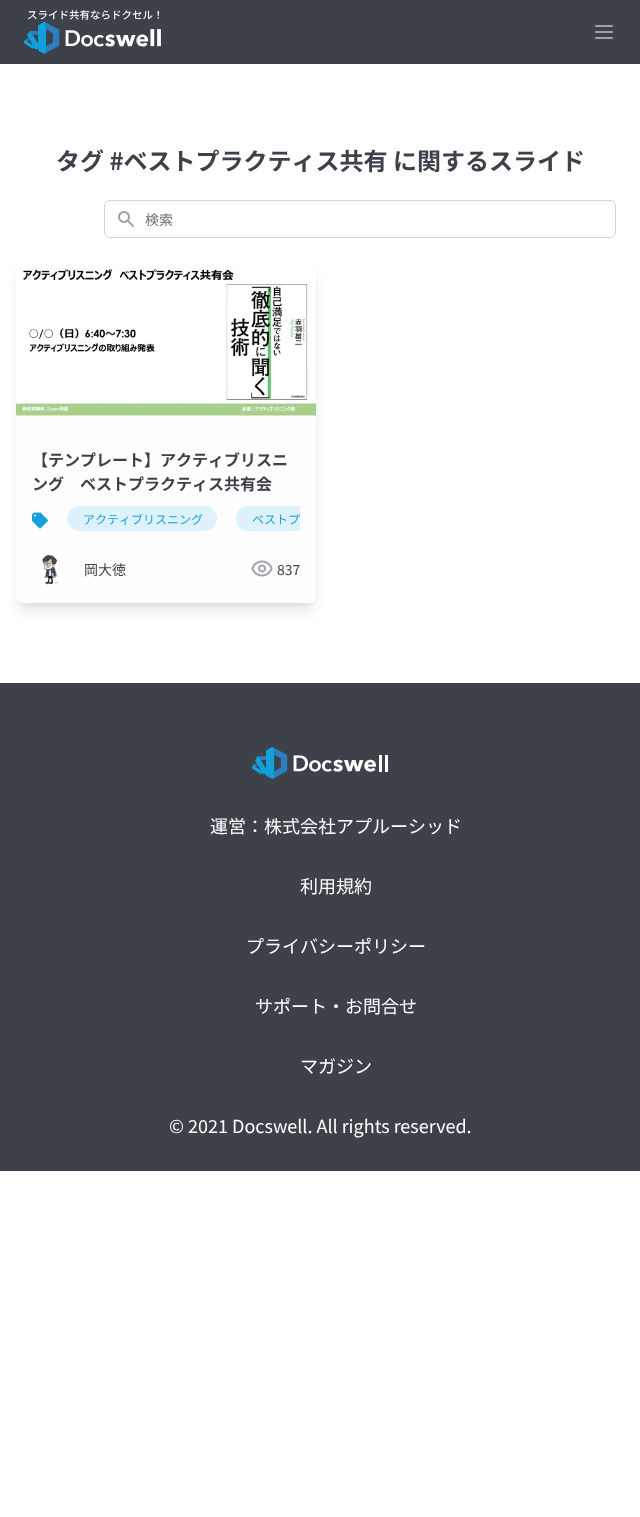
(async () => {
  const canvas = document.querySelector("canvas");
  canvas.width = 640;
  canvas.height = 1517;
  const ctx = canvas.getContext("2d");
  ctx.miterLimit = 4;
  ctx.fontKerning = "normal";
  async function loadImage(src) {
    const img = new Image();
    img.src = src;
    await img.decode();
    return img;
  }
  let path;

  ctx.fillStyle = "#ffffff";
  ctx.fillRect(0, 0, 640, 1517);
  ctx.fillStyle = "#3d424a";
  ctx.fillRect(0, 0, 640, 64);
  ctx.drawImage(await loadImage("img/1.png"), 24, 10, 137, 44);
  path = new Path2D("M596 26H612M596 32H612M596 38H612");
  ctx.strokeStyle = "#a1a1aa";
  ctx.lineWidth = 2;
  ctx.lineCap = "round";
  ctx.lineJoin = "round";
  ctx.stroke(path);
  ctx.beginPath();
  ctx.roundRect(104.5, 200.5, 511, 37, 5.5);
  ctx.strokeStyle = "#d4d4d8";
  ctx.lineWidth = 1;
  ctx.lineJoin = "miter";
  ctx.stroke();
  ctx.drawImage(await loadImage("img/2.png"), 118, 211, 16, 16);
  ctx.fillStyle = "rgba(0, 0, 0, 0.1)";
  ctx.filter = "blur(3px)";
  ctx.beginPath();
  ctx.roundRect(20, 270, 292, 333, 2);
  ctx.fill();
  ctx.filter = "none";
  ctx.filter = "blur(7.5px)";
  ctx.beginPath();
  ctx.roundRect(19, 275, 294, 335, 3);
  ctx.fill();
  ctx.filter = "none";
  ctx.fillStyle = "#fefefe";
  ctx.beginPath();
  ctx.roundRect(16, 262, 300, 341, 6);
  ctx.fill();
  ctx.drawImage(await loadImage("img/3.png"), 16, 269, 300, 148);
  ctx.drawImage(await loadImage("img/4.png"), 32, 512, 16, 17);
  ctx.fillStyle = "#ddf2fa";
  ctx.beginPath();
  ctx.roundRect(67, 506, 150, 25, 12.5);
  ctx.fill();
  ctx.beginPath();
  ctx.roundRect(236, 506, 64, 25, [12.5, 0, 0, 12.5]);
  ctx.fill();
  ctx.drawImage(await loadImage("img/5.png"), 41, 554, 18, 31);
  ctx.drawImage(await loadImage("img/6.png"), 251, 560, 22, 17);
  ctx.fillStyle = "#3d424a";
  ctx.fillRect(0, 683, 640, 488);
  ctx.drawImage(await loadImage("img/7.png"), 252, 747, 136, 32);
  ctx.font = "bold 24px Noto Sans JP";
  ctx.fillText("タグ #ベストプラクティス共有 に関するスライド", 56, 170);
  ctx.font = "14px Noto Sans JP";
  ctx.fillStyle = "#71717a";
  ctx.fillText("検索", 145, 225);
  ctx.font = "bold 16px Noto Sans JP";
  ctx.fillStyle = "#3d424a";
  ctx.fillText("【テンプレート】アクティブリスニ", 32, 466);
  ctx.fillText("ング　ベストプラクティス共有会", 32, 490);
  ctx.font = "12px Noto Sans JP";
  ctx.fillStyle = "#14a1db";
  ctx.fillText("アクティブリスニング", 83, 524);
  ctx.fillText("ベストプ", 252, 524);
  ctx.font = "14px Noto Sans JP";
  ctx.fillStyle = "#3d424a";
  ctx.fillText("岡大徳", 84, 575);
  ctx.fillText("837", 277, 575);
  ctx.font = "18px Noto Sans JP";
  ctx.fillStyle = "#fefefe";
  for (const [text, x, y] of [
    ["運営：株式会社アプルーシッド", 210, 833],
    ["利用規約", 300, 893],
    ["プライバシーポリシー", 246, 953],
    ["サポート・お問合せ", 255, 1013],
    ["マガジン", 300, 1073],
    ["© 2021 Docswell. All rights reserved.", 169, 1133],
  ]) {
    ctx.fillText(text, x, y);
  }
})();
